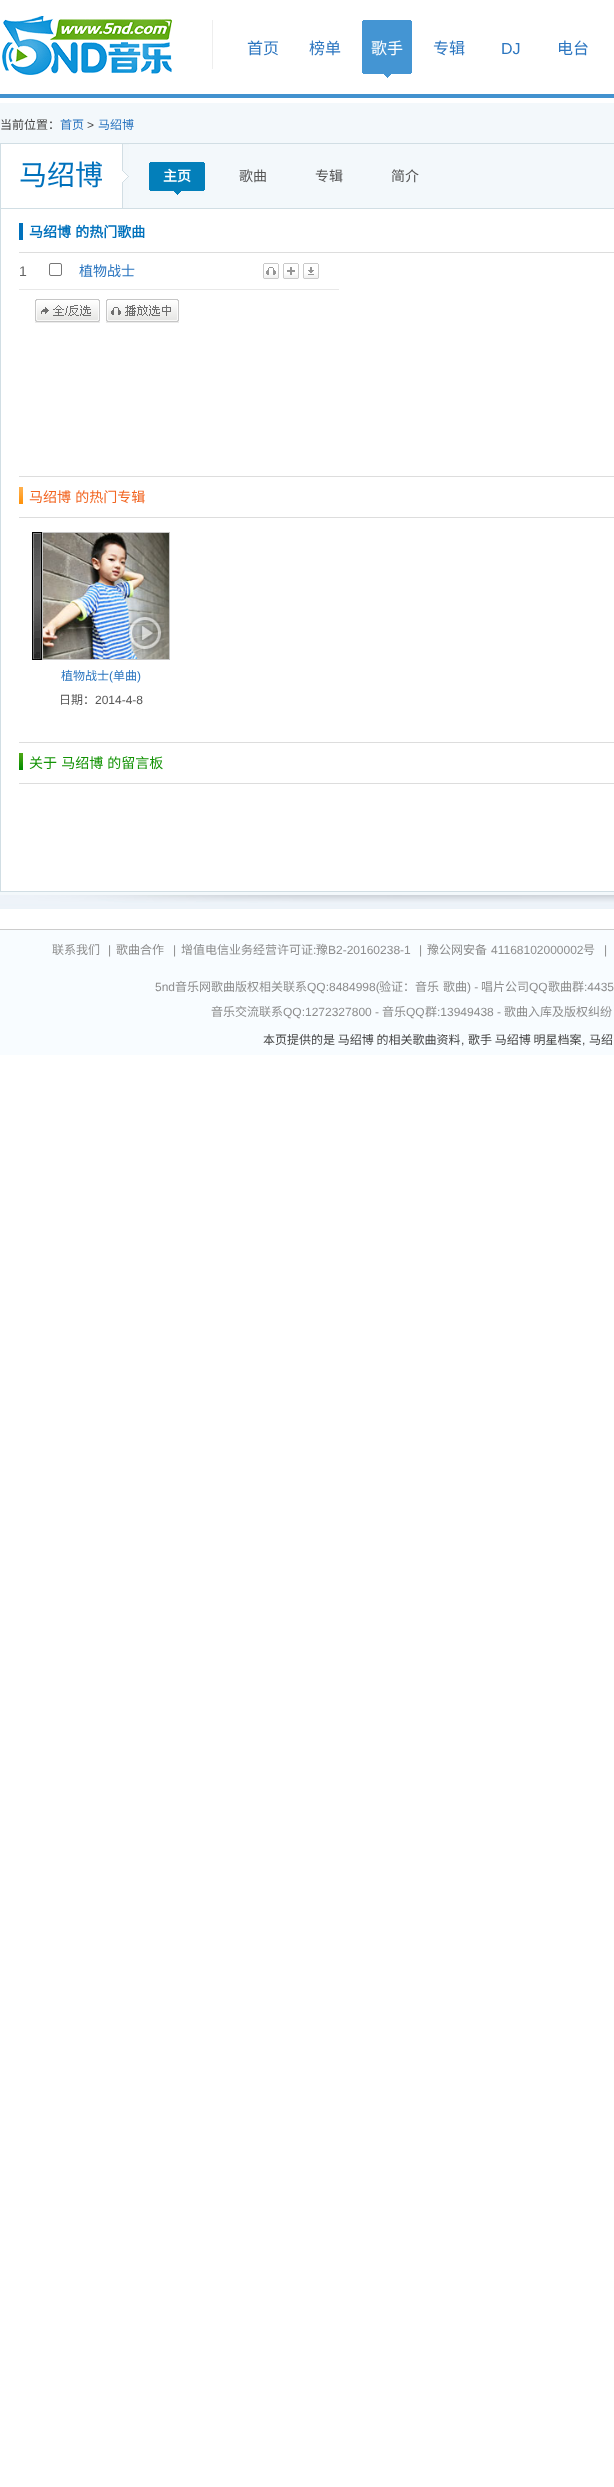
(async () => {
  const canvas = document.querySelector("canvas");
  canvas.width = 614;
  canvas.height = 2487;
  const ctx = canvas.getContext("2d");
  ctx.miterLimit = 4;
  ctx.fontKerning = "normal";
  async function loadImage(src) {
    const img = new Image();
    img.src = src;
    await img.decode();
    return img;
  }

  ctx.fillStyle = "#ffffff";
  ctx.fillRect(0, 0, 614, 2487);
  ctx.fillStyle = "#4292cf";
  ctx.fillRect(0, 94, 614, 4);
  ctx.drawImage(await loadImage("img/1.png"), 2, 16, 170, 59);
  ctx.fillStyle = "#eeeeee";
  ctx.fillRect(212, 20, 1, 49);
  ctx.drawImage(await loadImage("img/2.png"), 362, 20, 50, 58);
  ctx.fillStyle = "#f3f8fb";
  ctx.fillRect(0, 103, 614, 792);
  ctx.drawImage(await loadImage("img/3.png"), 0, 895, 614, 14);
  ctx.strokeStyle = "#d1dee4";
  ctx.strokeRect(0.5, 143.5, 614, 748);
  for (const [x, y, w, h, color] of [
    [1, 209, 613, 682, "#ffffff"],
    [1, 208, 613, 1, "#d1dee4"],
    [1, 144, 121, 64, "#ffffff"],
  ]) {
    ctx.fillStyle = color;
    ctx.fillRect(x, y, w, h);
  }
  ctx.drawImage(await loadImage("img/4.png"), 122, 144, 7, 64);
  ctx.drawImage(await loadImage("img/5.png"), 149, 162, 56, 33);
  for (const [x, y, w, h, color] of [
    [19, 252, 595, 1, "#dddddd"],
    [19, 223, 4, 17, "#0071bc"],
    [19, 289, 320, 1, "#e8e8e8"],
  ]) {
    ctx.fillStyle = color;
    ctx.fillRect(x, y, w, h);
  }
  ctx.beginPath();
  ctx.roundRect(49.5, 263.5, 12, 12, 1.5);
  ctx.strokeStyle = "#767676";
  ctx.stroke();
  ctx.drawImage(await loadImage("img/6.png"), 263, 263, 16, 16);
  ctx.drawImage(await loadImage("img/7.png"), 283, 263, 16, 16);
  ctx.drawImage(await loadImage("img/8.png"), 303, 263, 16, 16);
  ctx.drawImage(await loadImage("img/9.png"), 35, 299, 65, 24);
  ctx.drawImage(await loadImage("img/10.png"), 106, 299, 73, 24);
  ctx.fillStyle = "#dddddd";
  ctx.fillRect(19, 476, 595, 1);
  ctx.fillRect(19, 517, 595, 1);
  ctx.drawImage(await loadImage("img/11.png"), 19, 487, 4, 17);
  ctx.drawImage(await loadImage("img/12.png"), 32, 532, 10, 128);
  ctx.strokeStyle = "#c7c7c7";
  ctx.strokeRect(42.5, 532.5, 127, 127);
  ctx.drawImage(await loadImage("img/13.png"), 43, 533, 126, 126);
  ctx.drawImage(await loadImage("img/14.png"), 128, 614, 36, 38);
  ctx.fillRect(19, 742, 595, 1);
  ctx.fillRect(19, 783, 595, 1);
  ctx.drawImage(await loadImage("img/15.png"), 19, 753, 4, 17);
  ctx.fillStyle = "#f8fcff";
  ctx.fillRect(0, 930, 614, 125);
  ctx.fillStyle = "#cccccc";
  ctx.fillRect(0, 929, 614, 1);
  ctx.font = "16px Noto Sans CJK SC";
  ctx.fillStyle = "#2c76c0";
  ctx.fillText("首页", 247, 54);
  ctx.fillText("榜单", 309, 54);
  ctx.fillStyle = "#ffffff";
  ctx.fillText("歌手", 371, 54);
  ctx.fillStyle = "#2c76c0";
  ctx.fillText("专辑", 433, 54);
  ctx.font = "16px Liberation Sans";
  ctx.fillText("DJ", 501, 54);
  ctx.font = "16px Noto Sans CJK SC";
  ctx.fillText("电台", 557, 54);
  ctx.font = "12px Noto Sans CJK SC";
  ctx.fillStyle = "#464646";
  ctx.fillText("当前位置：", 0, 129);
  ctx.fillStyle = "#2c76c0";
  ctx.fillText("首页", 60, 129);
  ctx.font = "12px Liberation Sans";
  ctx.fillStyle = "#464646";
  ctx.fillText(">", 87, 129);
  ctx.font = "12px Noto Sans CJK SC";
  ctx.fillStyle = "#2c76c0";
  ctx.fillText("马绍博", 98, 129);
  ctx.font = "28px Noto Sans CJK SC";
  ctx.fillStyle = "#0071bc";
  ctx.fillText("马绍博", 19, 185);
  ctx.font = "bold 14px Noto Sans CJK SC";
  ctx.fillStyle = "#ffffff";
  ctx.fillText("主页", 163, 181);
  ctx.font = "14px Noto Sans CJK SC";
  ctx.fillStyle = "#555555";
  for (const [text, x, y] of [
    ["歌曲", 239, 181],
    ["专辑", 315, 181],
    ["简介", 391, 181],
  ]) {
    ctx.fillText(text, x, y);
  }
  ctx.wordSpacing = "1px";
  ctx.font = "bold 14px Noto Sans CJK SC";
  ctx.fillStyle = "#0071bc";
  ctx.fillText("马绍博 的热门歌曲", 29, 237);
  ctx.wordSpacing = "0px";
  ctx.font = "14px Liberation Sans";
  ctx.fillStyle = "#636363";
  ctx.fillText("1", 19, 276);
  ctx.font = "14px Noto Sans CJK SC";
  ctx.fillStyle = "#2c76c0";
  ctx.fillText("植物战士", 79, 276);
  ctx.wordSpacing = "1px";
  ctx.fillStyle = "#f26521";
  ctx.fillText("马绍博 的热门专辑", 29, 502);
  ctx.wordSpacing = "0px";
  ctx.font = "12px Noto Sans CJK SC";
  ctx.fillStyle = "#2c76c0";
  ctx.fillText("植物战士", 61, 680);
  ctx.font = "12px Liberation Sans";
  ctx.fillText("(", 109, 680);
  ctx.font = "12px Noto Sans CJK SC";
  ctx.fillText("单曲", 113, 680);
  ctx.font = "12px Liberation Sans";
  ctx.fillText(")", 137, 680);
  ctx.font = "12px Noto Sans CJK SC";
  ctx.fillStyle = "#555555";
  ctx.fillText("日期：", 59, 704);
  ctx.font = "12px Liberation Sans";
  ctx.fillText("2014-4-8", 95, 704);
  ctx.wordSpacing = "1px";
  ctx.font = "14px Noto Sans CJK SC";
  ctx.fillStyle = "#139305";
  ctx.fillText("关于 马绍博 的留言板", 29, 768);
  ctx.wordSpacing = "0px";
  ctx.font = "12px Noto Sans CJK SC";
  ctx.fillStyle = "#8d8d8d";
  ctx.fillText("联系我们", 52, 954);
  ctx.font = "12px Liberation Sans";
  ctx.fillText("|", 108, 954);
  ctx.font = "12px Noto Sans CJK SC";
  ctx.fillText("歌曲合作", 116, 954);
  ctx.font = "12px Liberation Sans";
  ctx.fillText("|", 173, 954);
  ctx.font = "12px Noto Sans CJK SC";
  ctx.fillText("增值电信业务经营许可证", 181, 954);
  ctx.font = "12px Liberation Sans";
  ctx.fillText(":", 313, 954);
  ctx.font = "12px Noto Sans CJK SC";
  ctx.fillText("豫", 316, 954);
  ctx.font = "12px Liberation Sans";
  ctx.fillText("B2-20160238-1", 328, 954);
  ctx.fillText("|", 419, 954);
  ctx.font = "12px Noto Sans CJK SC";
  ctx.fillText("豫公网安备", 427, 954);
  ctx.font = "12px Liberation Sans";
  ctx.fillText("41168102000002", 491, 954);
  ctx.font = "12px Noto Sans CJK SC";
  ctx.fillText("号", 583, 954);
  ctx.font = "12px Liberation Sans";
  ctx.fillText("|", 604, 954);
  ctx.fillText("5nd", 155, 991);
  ctx.font = "12px Noto Sans CJK SC";
  ctx.fillText("音乐网歌曲版权相关联系", 175, 991);
  ctx.font = "12px Liberation Sans";
  ctx.fillText("QQ:8484998(", 307, 991);
  ctx.font = "12px Noto Sans CJK SC";
  ctx.fillText("验证：音乐", 379, 991);
  ctx.fillText("歌曲", 443, 991);
  ctx.font = "12px Liberation Sans";
  ctx.fillText(") -", 467, 991);
  ctx.font = "12px Noto Sans CJK SC";
  ctx.fillText("唱片公司", 481, 991);
  ctx.font = "12px Liberation Sans";
  ctx.fillText("QQ", 529, 991);
  ctx.font = "12px Noto Sans CJK SC";
  ctx.fillText("歌曲群", 548, 991);
  ctx.font = "12px Liberation Sans";
  ctx.fillText(":4435", 584, 991);
  ctx.font = "12px Noto Sans CJK SC";
  ctx.fillText("音乐交流联系", 211, 1016);
  ctx.font = "12px Liberation Sans";
  ctx.fillText("QQ:1272327800 -", 283, 1016);
  ctx.font = "12px Noto Sans CJK SC";
  ctx.fillText("音乐", 382, 1016);
  ctx.font = "12px Liberation Sans";
  ctx.fillText("QQ", 406, 1016);
  ctx.font = "12px Noto Sans CJK SC";
  ctx.fillText("群", 425, 1016);
  ctx.font = "12px Liberation Sans";
  ctx.fillText(":13949438 -", 437, 1016);
  ctx.font = "12px Noto Sans CJK SC";
  ctx.fillText("歌曲入库及版权纠纷", 504, 1016);
  ctx.fillStyle = "#464646";
  ctx.fillText("本页提供的是 马绍博 的相关歌曲资料", 263, 1044);
  ctx.font = "12px Liberation Sans";
  ctx.fillText(",", 461, 1044);
  ctx.font = "12px Noto Sans CJK SC";
  ctx.fillText("歌手 马绍博 明星档案", 468, 1044);
  ctx.font = "12px Liberation Sans";
  ctx.fillText(",", 582, 1044);
  ctx.font = "12px Noto Sans CJK SC";
  ctx.fillText("马绍", 589, 1044);
})();
